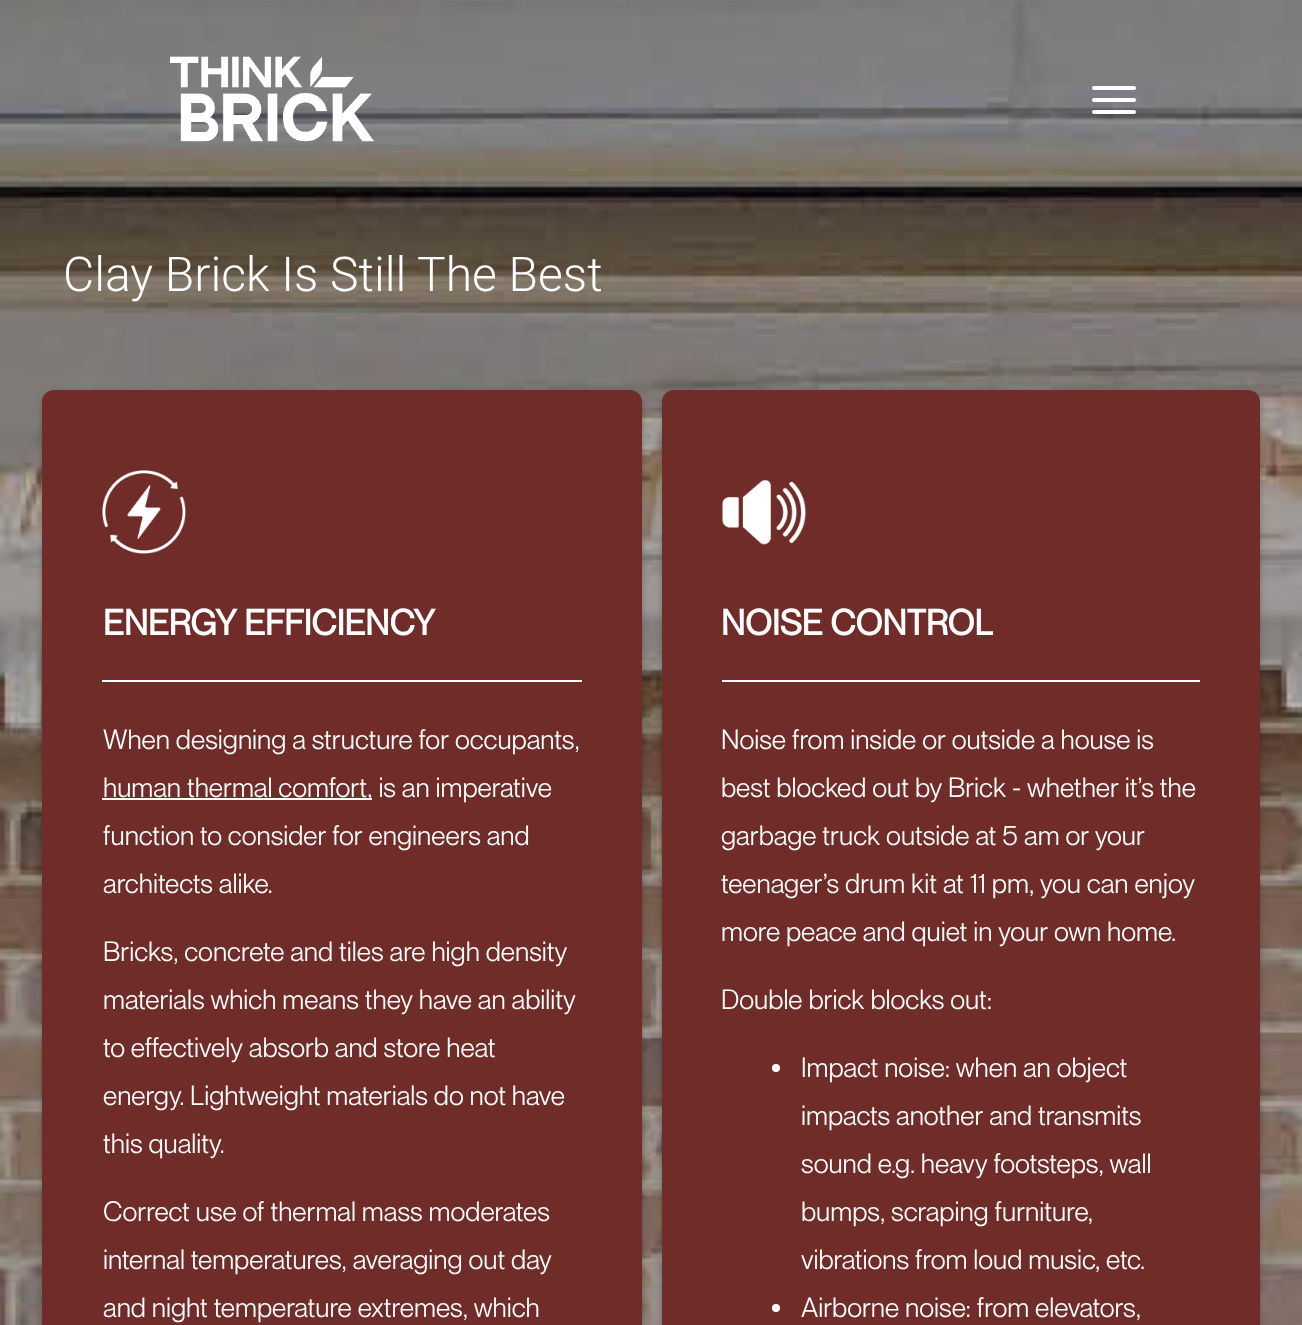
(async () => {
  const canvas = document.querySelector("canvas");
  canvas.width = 1302;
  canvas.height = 1325;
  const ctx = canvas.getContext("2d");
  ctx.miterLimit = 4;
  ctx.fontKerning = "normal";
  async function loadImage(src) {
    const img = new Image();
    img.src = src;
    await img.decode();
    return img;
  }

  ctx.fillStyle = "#ffffff";
  ctx.fillRect(0, 0, 1302, 1325);
  ctx.drawImage(await loadImage("img/2.png"), 0, 0, 1302, 1325);
  ctx.drawImage(await loadImage("img/1.png"), 170, 56, 204, 86);
  ctx.beginPath();
  ctx.roundRect(1092, 86, 44, 4, 2);
  ctx.fill();
  ctx.beginPath();
  ctx.roundRect(1092, 98, 44, 4, 2);
  ctx.fill();
  ctx.beginPath();
  ctx.roundRect(1092, 110, 44, 4, 2);
  ctx.fill();
  ctx.fillStyle = "rgba(0, 0, 0, 0.12)";
  ctx.filter = "blur(5px)";
  ctx.beginPath();
  ctx.roundRect(42, 392, 600, 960, 12);
  ctx.fill();
  ctx.filter = "none";
  ctx.fillStyle = "rgba(0, 0, 0, 0.14)";
  ctx.filter = "blur(2px)";
  ctx.beginPath();
  ctx.roundRect(42, 394, 600, 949, 12);
  ctx.fill();
  ctx.filter = "none";
  ctx.fillStyle = "#702c29";
  ctx.beginPath();
  ctx.roundRect(42, 390, 600, 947, 12);
  ctx.fill();
  ctx.drawImage(await loadImage("img/3.png"), 102, 470, 84, 84);
  ctx.fillStyle = "#ffffff";
  ctx.fillRect(102, 680, 480, 2);
  ctx.fillRect(102, 798, 270, 2);
  ctx.fillStyle = "rgba(0, 0, 0, 0.12)";
  ctx.filter = "blur(5px)";
  ctx.beginPath();
  ctx.roundRect(662, 392, 598, 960, 12);
  ctx.fill();
  ctx.filter = "none";
  ctx.fillStyle = "rgba(0, 0, 0, 0.14)";
  ctx.filter = "blur(2px)";
  ctx.beginPath();
  ctx.roundRect(662, 394, 598, 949, 12);
  ctx.fill();
  ctx.filter = "none";
  ctx.fillStyle = "#702c29";
  ctx.beginPath();
  ctx.roundRect(662, 390, 598, 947, 12);
  ctx.fill();
  ctx.drawImage(await loadImage("img/4.png"), 722, 479, 84, 66);
  ctx.fillStyle = "#ffffff";
  ctx.fillRect(722, 680, 478, 2);
  ctx.beginPath();
  ctx.arc(776, 1068, 4, 0, Math.PI * 2);
  ctx.fill();
  ctx.beginPath();
  ctx.arc(776, 1308, 4, 0, Math.PI * 2);
  ctx.fill();
  ctx.font = "300 48px Roboto";
  ctx.fillText("Clay Brick Is Still The Best", 63, 291);
  ctx.font = "bold 36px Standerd";
  ctx.fillText("ENERGY EFFICIENCY", 103, 635);
  ctx.font = "28px Standerd";
  for (const [text, x, y] of [
    ["When designing a structure for occupants,", 103, 749],
    ["human thermal comfort, is an imperative", 103, 797],
    ["function to consider for engineers and", 103, 845],
    ["architects alike.", 103, 893],
    ["Bricks, concrete and tiles are high density", 103, 961],
    ["materials which means they have an ability", 103, 1009],
    ["to effectively absorb and store heat", 103, 1057],
    ["energy. Lightweight materials do not have", 103, 1105],
    ["this quality.", 103, 1153],
    ["Correct use of thermal mass moderates", 103, 1221],
    ["internal temperatures, averaging out day", 103, 1269],
    ["and night temperature extremes, which", 103, 1317],
  ]) {
    ctx.fillText(text, x, y);
  }
  ctx.font = "bold 36px Standerd";
  ctx.fillText("NOISE CONTROL", 721, 635);
  ctx.font = "28px Standerd";
  for (const [text, x, y] of [
    ["Noise from inside or outside a house is", 721, 749],
    ["best blocked out by Brick - whether it’s the", 721, 797],
    ["garbage truck outside at 5 am or your", 721, 845],
    ["teenager’s drum kit at 11 pm, you can enjoy", 721, 893],
    ["more peace and quiet in your own home.", 721, 941],
    ["Double brick blocks out:", 721, 1009],
    ["Impact noise: when an object", 801, 1077],
    ["impacts another and transmits", 801, 1125],
    ["sound e.g. heavy footsteps, wall", 801, 1173],
    ["bumps, scraping furniture,", 801, 1221],
    ["vibrations from loud music, etc.", 801, 1269],
    ["Airborne noise: from elevators,", 801, 1317],
  ]) {
    ctx.fillText(text, x, y);
  }
})();
